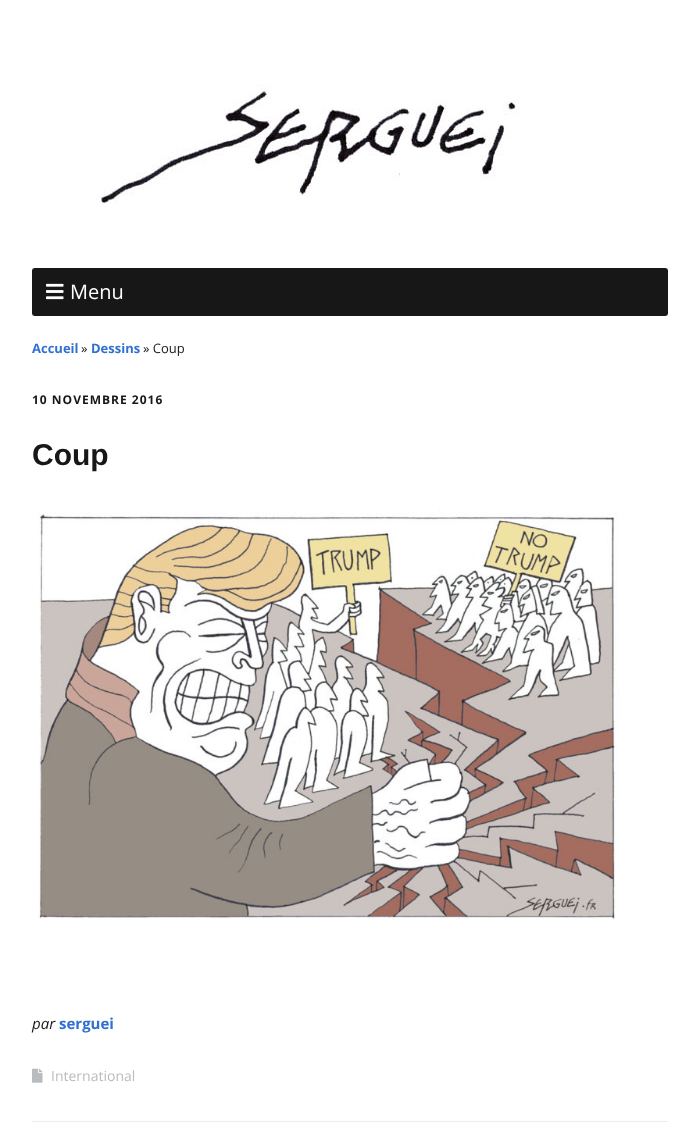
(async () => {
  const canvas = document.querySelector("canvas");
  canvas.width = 700;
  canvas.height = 1142;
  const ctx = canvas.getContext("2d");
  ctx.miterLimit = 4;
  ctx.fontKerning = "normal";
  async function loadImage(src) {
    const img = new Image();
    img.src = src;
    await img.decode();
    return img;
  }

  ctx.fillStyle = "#ffffff";
  ctx.fillRect(0, 0, 700, 1142);
  ctx.drawImage(await loadImage("img/1.png"), 96, 84, 424, 120);
  ctx.fillStyle = "#171717";
  ctx.beginPath();
  ctx.roundRect(32, 268, 636, 48, 3);
  ctx.fill();
  ctx.drawImage(await loadImage("img/2.png"), 46, 283, 18, 17);
  ctx.fillStyle = "#eaecee";
  ctx.fillRect(32, 1121, 636, 1);
  ctx.drawImage(await loadImage("img/3.png"), 38, 508, 581, 412);
  ctx.drawImage(await loadImage("img/4.png"), 32, 1068, 11, 15);
  ctx.font = "20px Open Sans";
  ctx.fillStyle = "#ffffff";
  ctx.fillText("Menu", 70, 299);
  ctx.font = "bold 13px Open Sans";
  ctx.fillStyle = "#3070d1";
  ctx.fillText("Accueil", 32, 353);
  ctx.font = "13px Open Sans";
  ctx.fillStyle = "#171717";
  ctx.fillText("»", 81, 353);
  ctx.font = "bold 13px Open Sans";
  ctx.fillStyle = "#3070d1";
  ctx.fillText("Dessins", 91, 353);
  ctx.font = "13px Open Sans";
  ctx.fillStyle = "#171717";
  ctx.fillText("» Coup", 143, 353);
  ctx.letterSpacing = "1px";
  ctx.font = "bold 12px Open Sans";
  ctx.fillText("10 NOVEMBRE 2016", 32, 404);
  ctx.letterSpacing = "0px";
  ctx.font = "bold 30px Liberation Sans";
  ctx.fillText("Coup", 32, 465);
  ctx.font = "italic 15px Open Sans";
  ctx.fillText("par", 32, 1029);
  ctx.font = "bold 15px Open Sans";
  ctx.fillStyle = "#3070d1";
  ctx.fillText("serguei", 59, 1029);
  ctx.font = "14px Open Sans";
  ctx.fillStyle = "#b9bcbf";
  ctx.fillText("International", 51, 1081);
})();
